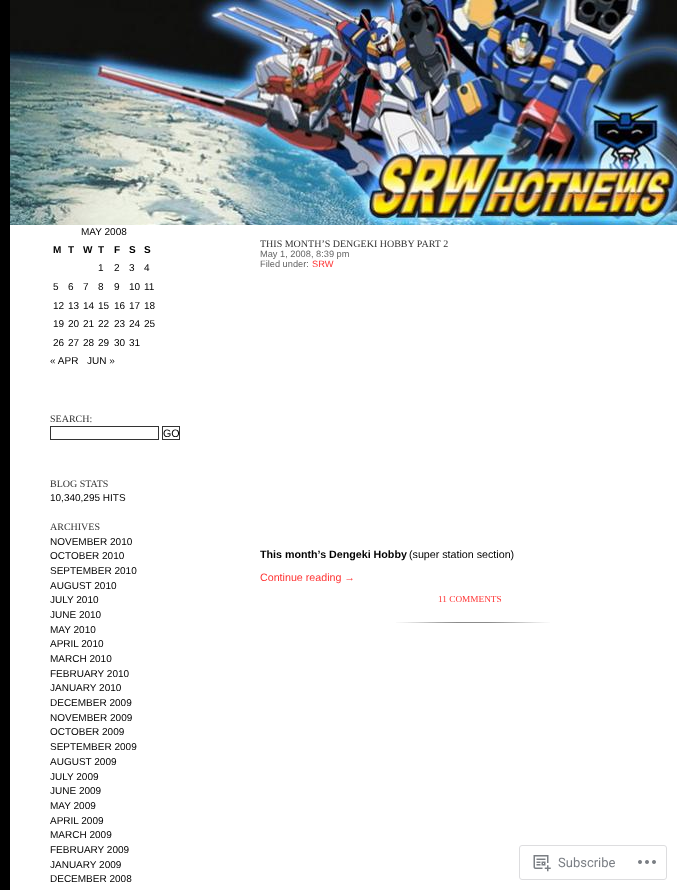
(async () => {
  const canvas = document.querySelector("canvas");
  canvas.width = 677;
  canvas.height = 890;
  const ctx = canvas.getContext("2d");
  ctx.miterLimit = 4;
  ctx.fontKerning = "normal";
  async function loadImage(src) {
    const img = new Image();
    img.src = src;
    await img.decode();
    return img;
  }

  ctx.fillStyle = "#000000";
  ctx.fillRect(0, 0, 677, 890);
  ctx.drawImage(await loadImage("img/1.png"), 10, 0, 667, 225);
  ctx.fillStyle = "#ffffff";
  ctx.fillRect(10, 225, 667, 665);
  ctx.strokeStyle = "#333333";
  ctx.strokeRect(50.5, 426.5, 108, 13);
  ctx.strokeRect(162.5, 426.5, 17, 13);
  ctx.drawImage(await loadImage("img/2.png"), 396, 622, 154, 1);
  ctx.beginPath();
  ctx.roundRect(519.5, 845.5, 147, 34, 2.5);
  ctx.strokeStyle = "#dddddf";
  ctx.stroke();
  ctx.drawImage(await loadImage("img/3.png"), 533, 855, 18, 17);
  ctx.drawImage(await loadImage("img/4.png"), 638, 860, 18, 4);
  ctx.font = "10px Liberation Sans";
  ctx.fillStyle = "#000000";
  ctx.fillText("MAY 2008", 81, 235);
  ctx.font = "bold 10px Liberation Sans";
  for (const [text, x, y] of [
    ["M", 53, 253],
    ["T", 68, 253],
    ["W", 83, 253],
    ["T", 98, 253],
    ["F", 114, 253],
    ["S", 129, 253],
    ["S", 144, 253],
  ]) {
    ctx.fillText(text, x, y);
  }
  ctx.font = "10px Liberation Sans";
  for (const [text, x, y] of [
    ["1", 98, 271],
    ["2", 114, 271],
    ["3", 129, 271],
    ["4", 144, 271],
    ["5", 53, 290],
    ["6", 68, 290],
    ["7", 83, 290],
    ["8", 98, 290],
    ["9", 114, 290],
    ["10", 129, 290],
    ["11", 144, 290],
    ["12", 53, 309],
    ["13", 68, 309],
    ["14", 83, 309],
    ["15", 98, 309],
    ["16", 114, 309],
    ["17", 129, 309],
    ["18", 144, 309],
    ["19", 53, 327],
    ["20", 68, 327],
    ["21", 83, 327],
    ["22", 98, 327],
    ["23", 114, 327],
    ["24", 129, 327],
    ["25", 144, 327],
    ["26", 53, 346],
    ["27", 68, 346],
    ["28", 83, 346],
    ["29", 98, 346],
    ["30", 114, 346],
    ["31", 129, 346],
    ["« APR", 50, 364],
    ["JUN »", 87, 364],
  ]) {
    ctx.fillText(text, x, y);
  }
  ctx.font = "10px Liberation Serif";
  ctx.fillStyle = "#333333";
  ctx.fillText("SEARCH:", 50, 422);
  ctx.font = "10.7px Liberation Sans";
  ctx.fillStyle = "#000000";
  ctx.fillText("GO", 163, 437);
  ctx.font = "10px Liberation Serif";
  ctx.fillStyle = "#333333";
  ctx.fillText("BLOG STATS", 50, 487);
  ctx.font = "10px Liberation Sans";
  ctx.fillStyle = "#000000";
  ctx.fillText("10,340,295 HITS", 50, 501);
  ctx.font = "10px Liberation Serif";
  ctx.fillStyle = "#333333";
  ctx.fillText("ARCHIVES", 50, 530);
  ctx.font = "10px Liberation Sans";
  ctx.fillStyle = "#000000";
  for (const [text, x, y] of [
    ["NOVEMBER 2010", 50, 545],
    ["OCTOBER 2010", 50, 559],
    ["SEPTEMBER 2010", 50, 574],
    ["AUGUST 2010", 50, 589],
    ["JULY 2010", 50, 603],
    ["JUNE 2010", 50, 618],
    ["MAY 2010", 50, 633],
    ["APRIL 2010", 50, 647],
    ["MARCH 2010", 50, 662],
    ["FEBRUARY 2010", 50, 677],
    ["JANUARY 2010", 50, 691],
    ["DECEMBER 2009", 50, 706],
    ["NOVEMBER 2009", 50, 721],
    ["OCTOBER 2009", 50, 735],
    ["SEPTEMBER 2009", 50, 750],
    ["AUGUST 2009", 50, 765],
    ["JULY 2009", 50, 780],
    ["JUNE 2009", 50, 794],
    ["MAY 2009", 50, 809],
    ["APRIL 2009", 50, 824],
    ["MARCH 2009", 50, 838],
    ["FEBRUARY 2009", 50, 853],
    ["JANUARY 2009", 50, 868],
    ["DECEMBER 2008", 50, 882],
  ]) {
    ctx.fillText(text, x, y);
  }
  ctx.font = "10px Liberation Serif";
  ctx.fillStyle = "#333333";
  ctx.fillText("THIS MONTH’S DENGEKI HOBBY PART 2", 260, 247);
  ctx.font = "9.25px Liberation Sans";
  ctx.fillStyle = "#666666";
  ctx.fillText("May 1, 2008, 8:39 pm", 260, 257);
  ctx.fillText("Filed under:", 260, 267);
  ctx.fillStyle = "#ff3333";
  ctx.fillText("SRW", 312, 267);
  ctx.font = "bold 10.7px Liberation Sans";
  ctx.fillStyle = "#000000";
  ctx.fillText("This month’s Dengeki Hobby", 260, 558);
  ctx.font = "10.7px Liberation Sans";
  ctx.fillText("(super station section)", 409, 558);
  ctx.fillStyle = "#ff3333";
  ctx.fillText("Continue reading →", 260, 581);
  ctx.font = "9.25px Liberation Serif";
  ctx.fillText("11 COMMENTS", 438, 602);
  ctx.font = "13px Roboto";
  ctx.fillStyle = "#7b7f85";
  ctx.fillText("Subscribe", 558, 867);
})();
